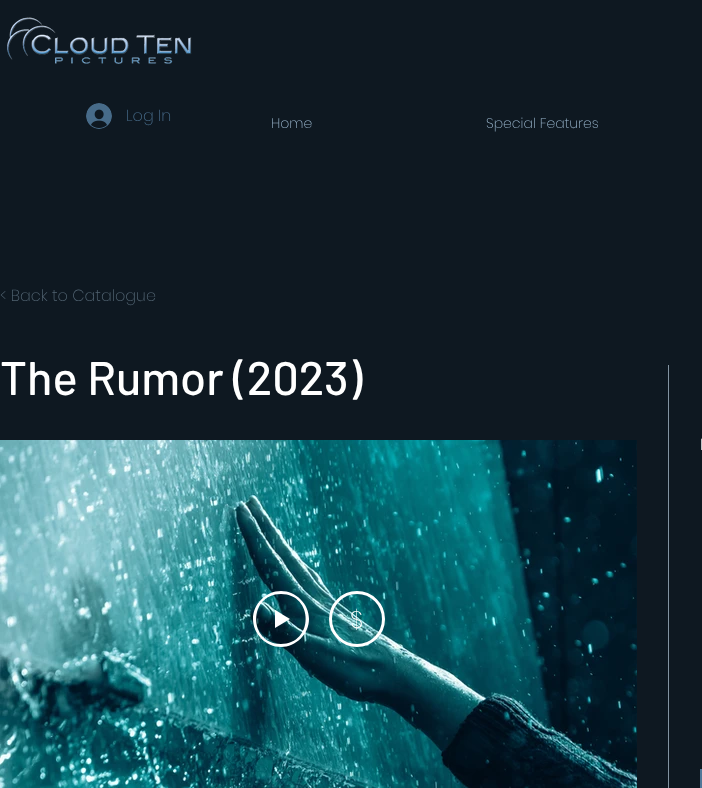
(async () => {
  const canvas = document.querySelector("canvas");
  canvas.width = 702;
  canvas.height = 788;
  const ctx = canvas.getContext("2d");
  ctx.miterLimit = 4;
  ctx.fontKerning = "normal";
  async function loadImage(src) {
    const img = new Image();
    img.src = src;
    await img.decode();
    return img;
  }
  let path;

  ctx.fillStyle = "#0e1821";
  ctx.fillRect(0, 0, 702, 788);
  ctx.drawImage(await loadImage("img/1.png"), 7, 17, 185, 47);
  ctx.drawImage(await loadImage("img/2.png"), 86, 103, 26, 26);
  ctx.fillStyle = "#8293a1";
  ctx.fillRect(668, 365, 1, 423);
  ctx.drawImage(await loadImage("img/3.png"), 0, 440, 637, 348);
  ctx.fillStyle = "#ffffff";
  path = new Path2D("M281 644C314 644 314 594 281 594C248 594 248 644 281 644ZM281 647C266 647 253 634 253 619C253 604 266 591 281 591C296 591 309 604 309 619C309 634 296 647 281 647Z");
  ctx.fill(path, "evenodd");
  path = new Path2D("M290 619L275 628V610Z");
  ctx.fill(path, "evenodd");
  ctx.beginPath();
  ctx.arc(357, 619, 26.5, 0, Math.PI * 2);
  ctx.strokeStyle = "#ffffff";
  ctx.lineWidth = 3;
  ctx.stroke();
  ctx.fillStyle = "#507798";
  ctx.fillRect(700, 769, 2, 19);
  ctx.font = "200 16px Poppins";
  ctx.fillStyle = "#476b89";
  ctx.fillText("Log In", 126, 121);
  ctx.font = "200 14px Poppins";
  ctx.fillStyle = "#99b5cc";
  ctx.fillText("Home", 271, 128);
  ctx.fillText("Special Features", 486, 128);
  ctx.font = "200 16px Poppins";
  ctx.fillStyle = "#516371";
  ctx.fillText("< Back to Catalogue", 0, 301);
  ctx.font = "500 47px Barlow";
  ctx.fillStyle = "#ffffff";
  ctx.fillText("The Rumor (2023)", 0, 395);
  ctx.font = "200 16px Poppins";
  ctx.fillText("I", 700, 450);
  ctx.font = "200 24px Poppins";
  ctx.fillText("$", 350, 628);
})();
